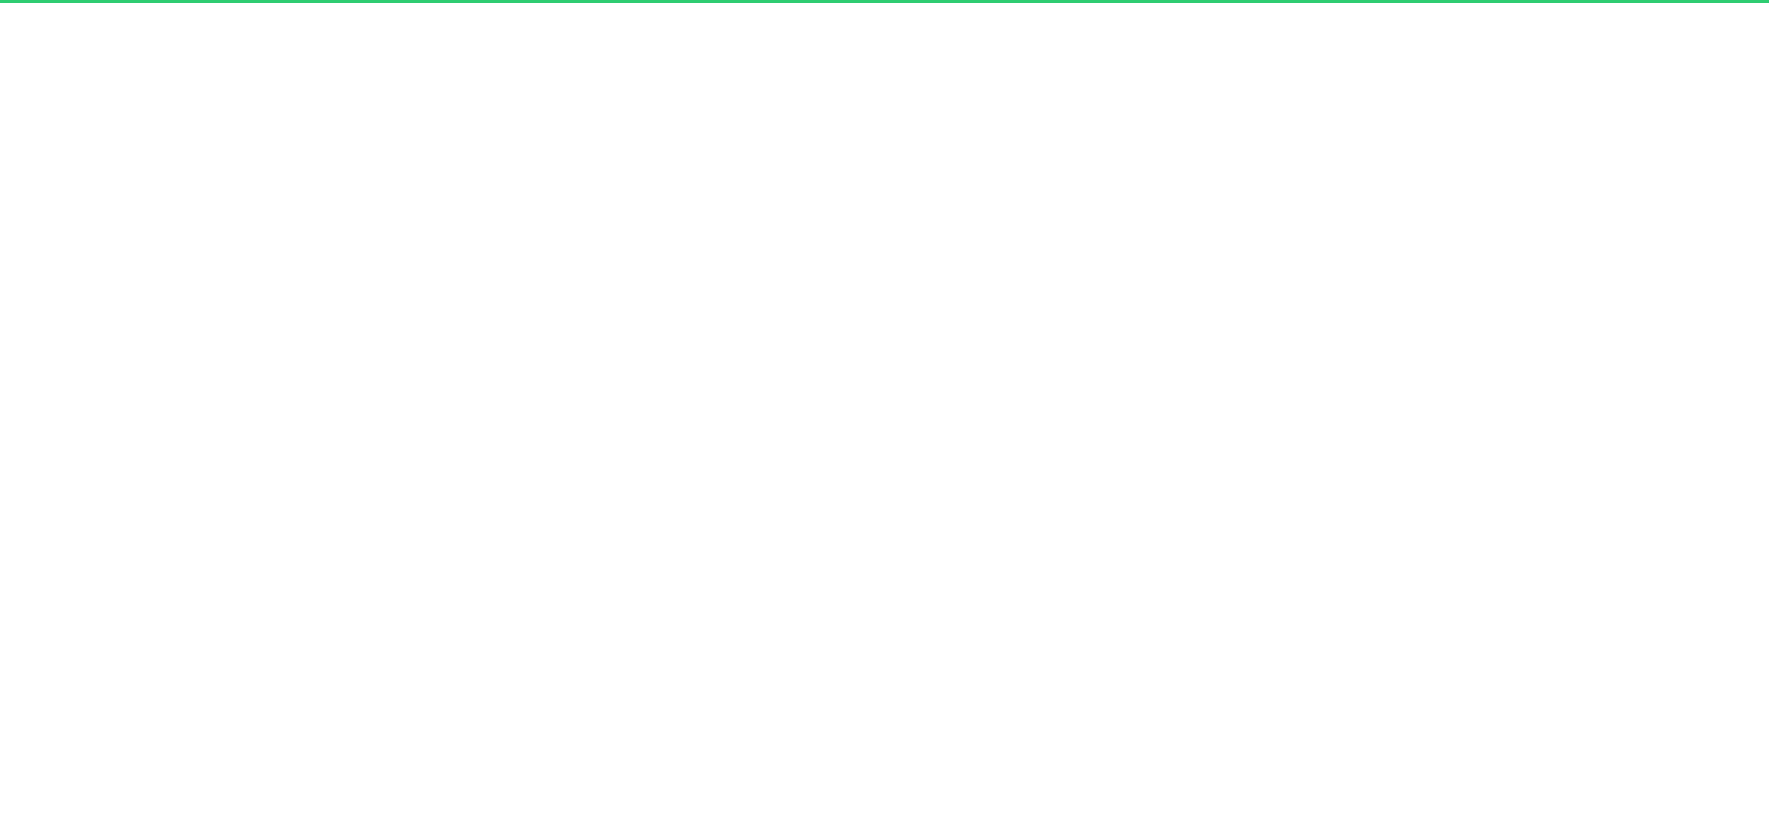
(async () => {
  const canvas = document.querySelector("canvas");
  canvas.width = 1769;
  canvas.height = 834;
  const ctx = canvas.getContext("2d");
  ctx.miterLimit = 4;
  ctx.fontKerning = "normal";

  ctx.fillStyle = "#2ecc71";
  ctx.fillRect(0, 0, 1769, 834);
  ctx.fillStyle = "#ffffff";
  ctx.fillRect(0, 3, 1769, 831);
})();
